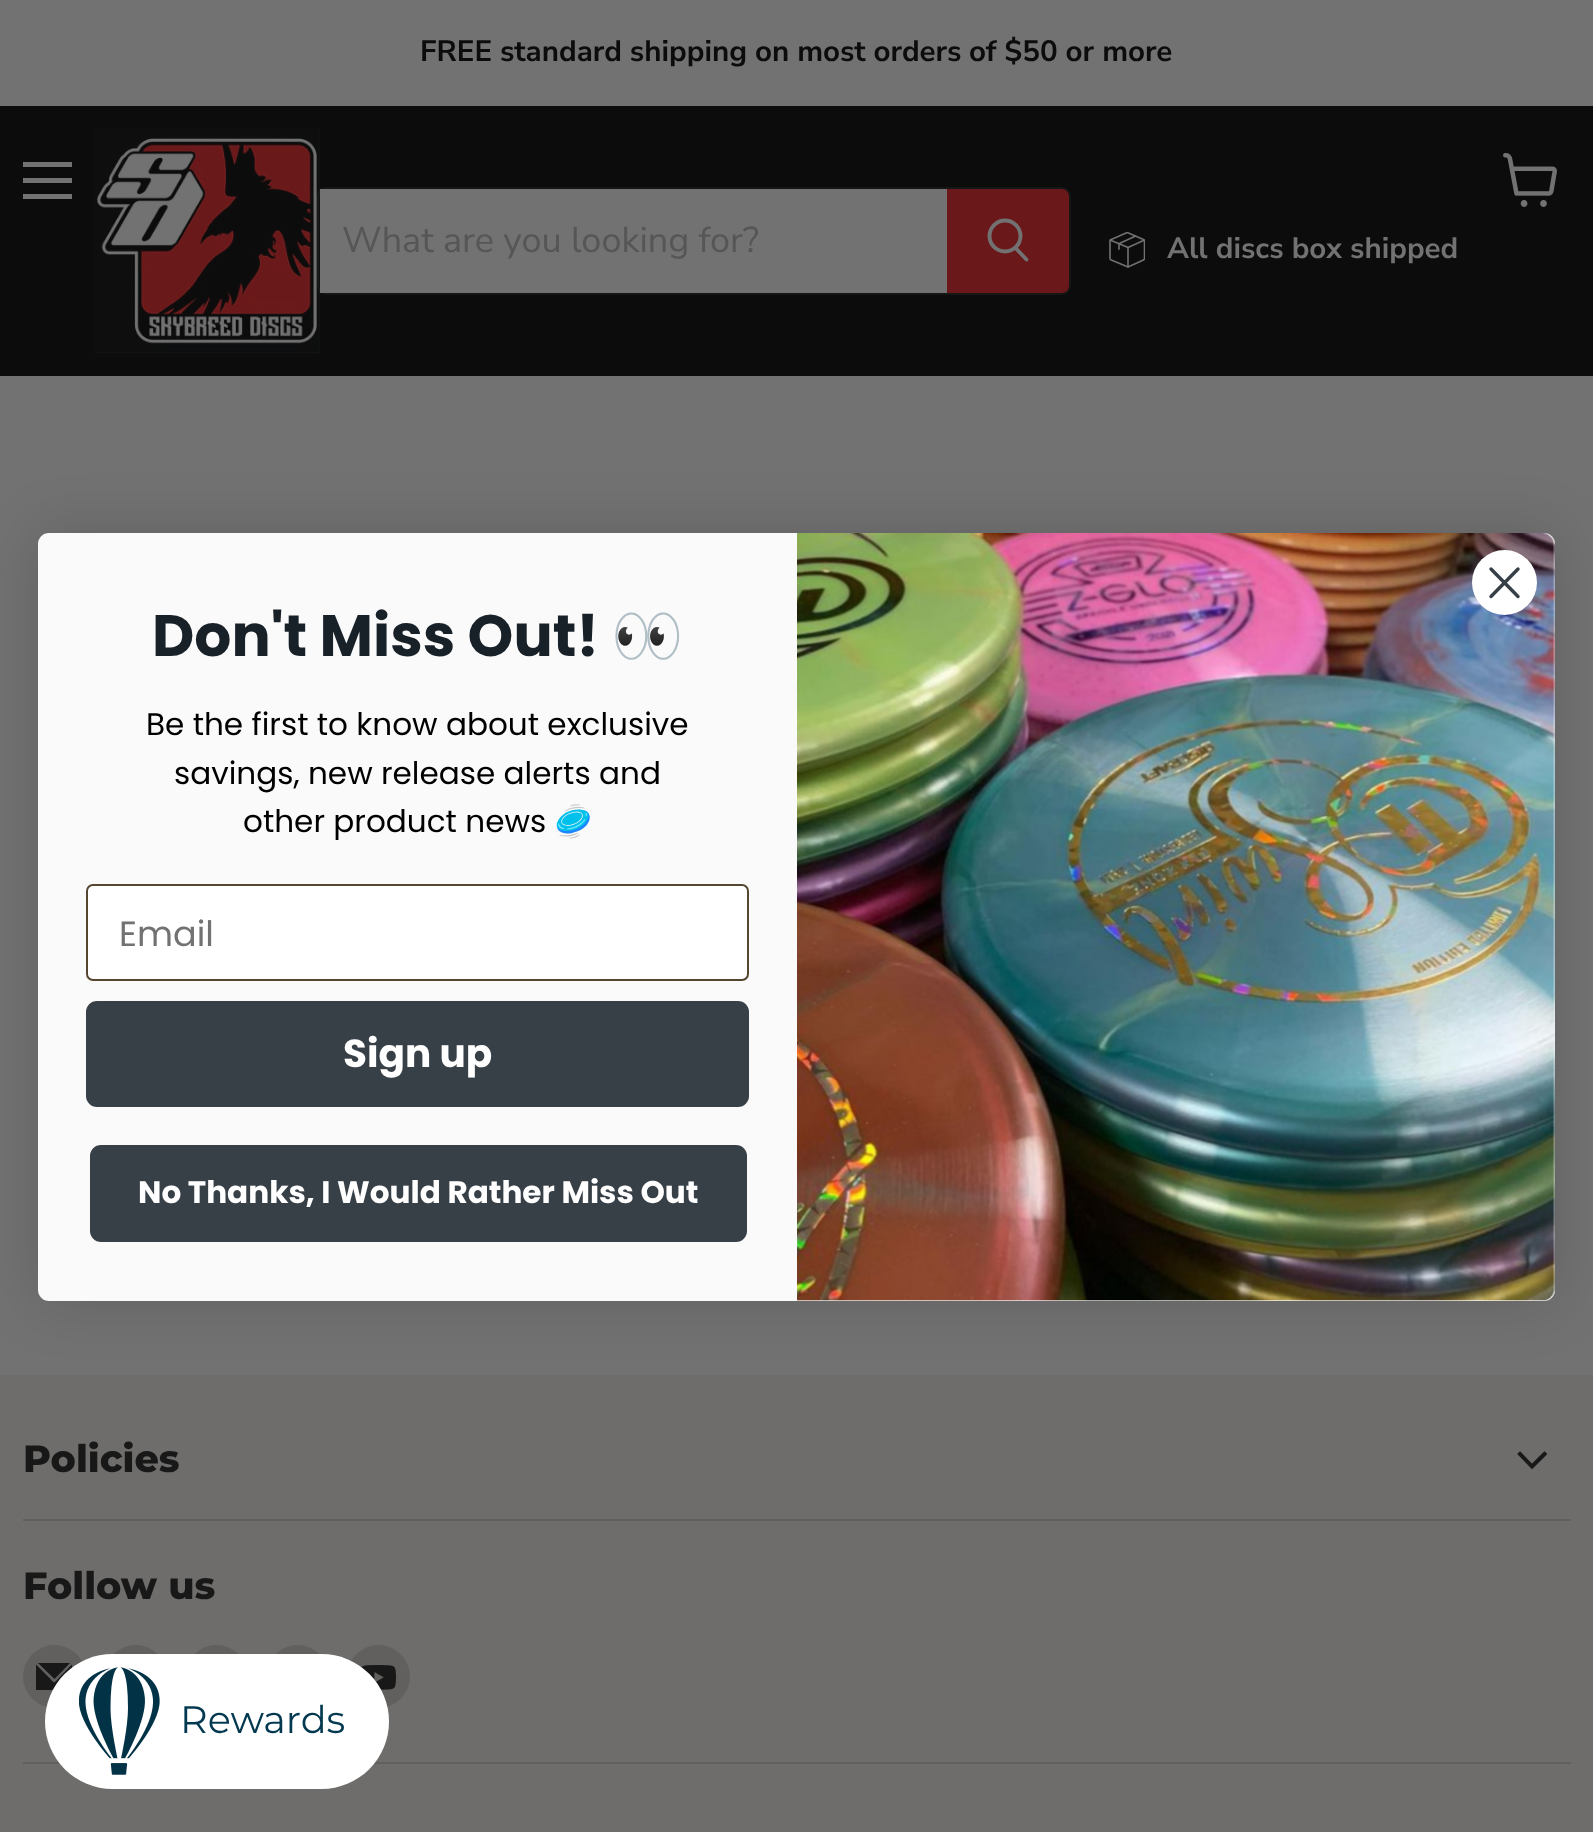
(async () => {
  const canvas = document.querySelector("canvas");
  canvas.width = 1593;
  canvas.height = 1832;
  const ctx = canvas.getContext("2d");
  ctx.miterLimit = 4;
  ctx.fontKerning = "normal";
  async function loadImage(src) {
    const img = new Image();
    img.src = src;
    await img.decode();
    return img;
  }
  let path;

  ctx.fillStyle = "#727272";
  ctx.fillRect(0, 0, 1593, 1832);
  for (const [x, y, w, h, color] of [
    [0, 106, 1593, 270, "#0c0c0c"],
    [23, 162, 49, 5, "#727272"],
    [23, 178, 49, 5, "#727272"],
    [23, 194, 49, 5, "#727272"],
  ]) {
    ctx.fillStyle = color;
    ctx.fillRect(x, y, w, h);
  }
  ctx.drawImage(await loadImage("img/1.png"), 1503, 153, 54, 54);
  ctx.drawImage(await loadImage("img/2.png"), 94, 128, 226, 226);
  ctx.beginPath();
  ctx.roundRect(318, 188, 752, 106, 8);
  ctx.strokeStyle = "rgba(63, 63, 63, 0.2)";
  ctx.lineWidth = 2;
  ctx.stroke();
  ctx.fillRect(320, 189, 627, 104);
  ctx.fillStyle = "#6b181a";
  ctx.beginPath();
  ctx.roundRect(948, 190, 120, 102, [0, 6, 6, 0]);
  ctx.fill();
  ctx.strokeStyle = "#6b181a";
  ctx.stroke();
  path = new Path2D("M1026.5 259.5L1016 248.5");
  ctx.strokeStyle = "#727272";
  ctx.lineWidth = 3.9;
  ctx.lineCap = "round";
  ctx.stroke(path);
  ctx.beginPath();
  ctx.arc(1005, 236, 15.5, 0, Math.PI * 2);
  ctx.stroke();
  ctx.drawImage(await loadImage("img/3.png"), 1109, 232, 36, 36);
  ctx.fillStyle = "#6e6d6b";
  ctx.fillRect(0, 1375, 1593, 457);
  ctx.fillStyle = "rgba(0, 0, 0, 0.15)";
  ctx.filter = "blur(29px)";
  ctx.beginPath();
  ctx.roundRect(38, 533, 1517, 768, 11);
  ctx.fill();
  ctx.filter = "none";
  ctx.fillStyle = "#fafafa";
  ctx.beginPath();
  ctx.roundRect(38, 533, 1517, 768, 11);
  ctx.fill();
  ctx.drawImage(await loadImage("img/4.png"), 797, 533, 758, 768);
  ctx.fillStyle = "#ffffff";
  ctx.beginPath();
  ctx.arc(1504.5, 582.5, 32.5, 0, Math.PI * 2);
  ctx.fill();
  path = new Path2D("M1491 569L1518 596.5M1491 596.5L1518 569Z");
  ctx.strokeStyle = "#373f47";
  ctx.lineWidth = 3.4;
  ctx.lineJoin = "round";
  ctx.stroke(path);
  ctx.beginPath();
  ctx.roundRect(87, 885, 661, 95, 6);
  ctx.fill();
  ctx.strokeStyle = "#54462f";
  ctx.lineWidth = 2;
  ctx.lineJoin = "miter";
  ctx.stroke();
  ctx.fillStyle = "#373f47";
  ctx.beginPath();
  ctx.roundRect(86, 1001, 663, 106, 11);
  ctx.fill();
  ctx.beginPath();
  ctx.roundRect(90, 1145, 657, 97, 11);
  ctx.fill();
  ctx.fillStyle = "#61605e";
  ctx.fillRect(23, 1519, 1548, 2);
  path = new Path2D("M1532 1466.5L1544.5 1454M1532 1466.5L1520 1454");
  ctx.strokeStyle = "#181818";
  ctx.lineWidth = 3.9;
  ctx.lineCap = "square";
  ctx.stroke(path);
  ctx.fillRect(23, 1762, 1548, 2);
  ctx.beginPath();
  ctx.arc(54.5, 1676.5, 31.5, 0, Math.PI * 2);
  ctx.fill();
  ctx.fillStyle = "#181818";
  path = new Path2D("M55 1682C53.5 1683.5 50.5 1679 50.5 1679L36 1664.5V1690H72V1664.5Z");
  ctx.fill(path);
  path = new Path2D("M70 1663H38L54.5 1679Z");
  ctx.fill(path);
  ctx.fillStyle = "#61605e";
  ctx.beginPath();
  ctx.arc(135.5, 1676.5, 31.5, 0, Math.PI * 2);
  ctx.fill();
  ctx.beginPath();
  ctx.arc(216.5, 1676.5, 31.5, 0, Math.PI * 2);
  ctx.fill();
  ctx.beginPath();
  ctx.arc(297.5, 1676.5, 31.5, 0, Math.PI * 2);
  ctx.fill();
  ctx.beginPath();
  ctx.arc(378.5, 1676.5, 31.5, 0, Math.PI * 2);
  ctx.fill();
  ctx.drawImage(await loadImage("img/5.png"), 361, 1665, 35, 25);
  ctx.fillStyle = "#ffffff";
  ctx.beginPath();
  ctx.roundRect(45, 1654, 344, 135, 67.5);
  ctx.fill();
  ctx.drawImage(await loadImage("img/6.png"), 79, 1667, 81, 108);
  ctx.font = "bold 29.5px Nunito Sans";
  ctx.fillStyle = "#0c0c0c";
  ctx.fillText("FREE standard shipping on most orders", 420, 61);
  ctx.fillText("of $50 or more", 969, 61);
  ctx.font = "36px Nunito Sans";
  ctx.fillStyle = "#565656";
  ctx.fillText("What are you looking for?", 342, 252);
  ctx.font = "bold 29.5px Nunito Sans";
  ctx.fillStyle = "#727272";
  ctx.fillText("All discs box shipped", 1167, 258);
  ctx.font = "bold 58.25px Poppins";
  ctx.fillStyle = "#182028";
  ctx.fillText("Don't Miss Out!", 152, 656);
  ctx.font = "bold 58.25px Noto Color Emoji";
  ctx.fillText("👀", 611, 656);
  ctx.font = "31.1px Poppins";
  ctx.fillStyle = "#000000";
  for (const [text, x, y] of [
    ["Be the first to know about exclusive", 146, 735],
    ["savings, new release alerts and", 174, 784],
    ["other product news", 243, 832],
  ]) {
    ctx.fillText(text, x, y);
  }
  ctx.font = "31.1px Noto Color Emoji";
  ctx.fillText("🥏", 554, 832);
  ctx.font = "35px Poppins";
  ctx.fillStyle = "#727272";
  ctx.fillText("Email", 119, 946);
  ctx.font = "bold 39px Poppins";
  ctx.fillStyle = "#ffffff";
  ctx.fillText("Sign up", 343, 1067);
  ctx.font = "bold 31.1px Poppins";
  ctx.fillText("No Thanks, I Would Rather Miss Out", 138, 1203);
  ctx.font = "800 38px Montserrat";
  ctx.fillStyle = "#181818";
  ctx.fillText("Policies", 23, 1472);
  ctx.fillText("Follow us", 23, 1599);
  ctx.font = "38.25px Montserrat";
  ctx.fillStyle = "#033950";
  ctx.fillText("Rewards", 180, 1733);
})();
